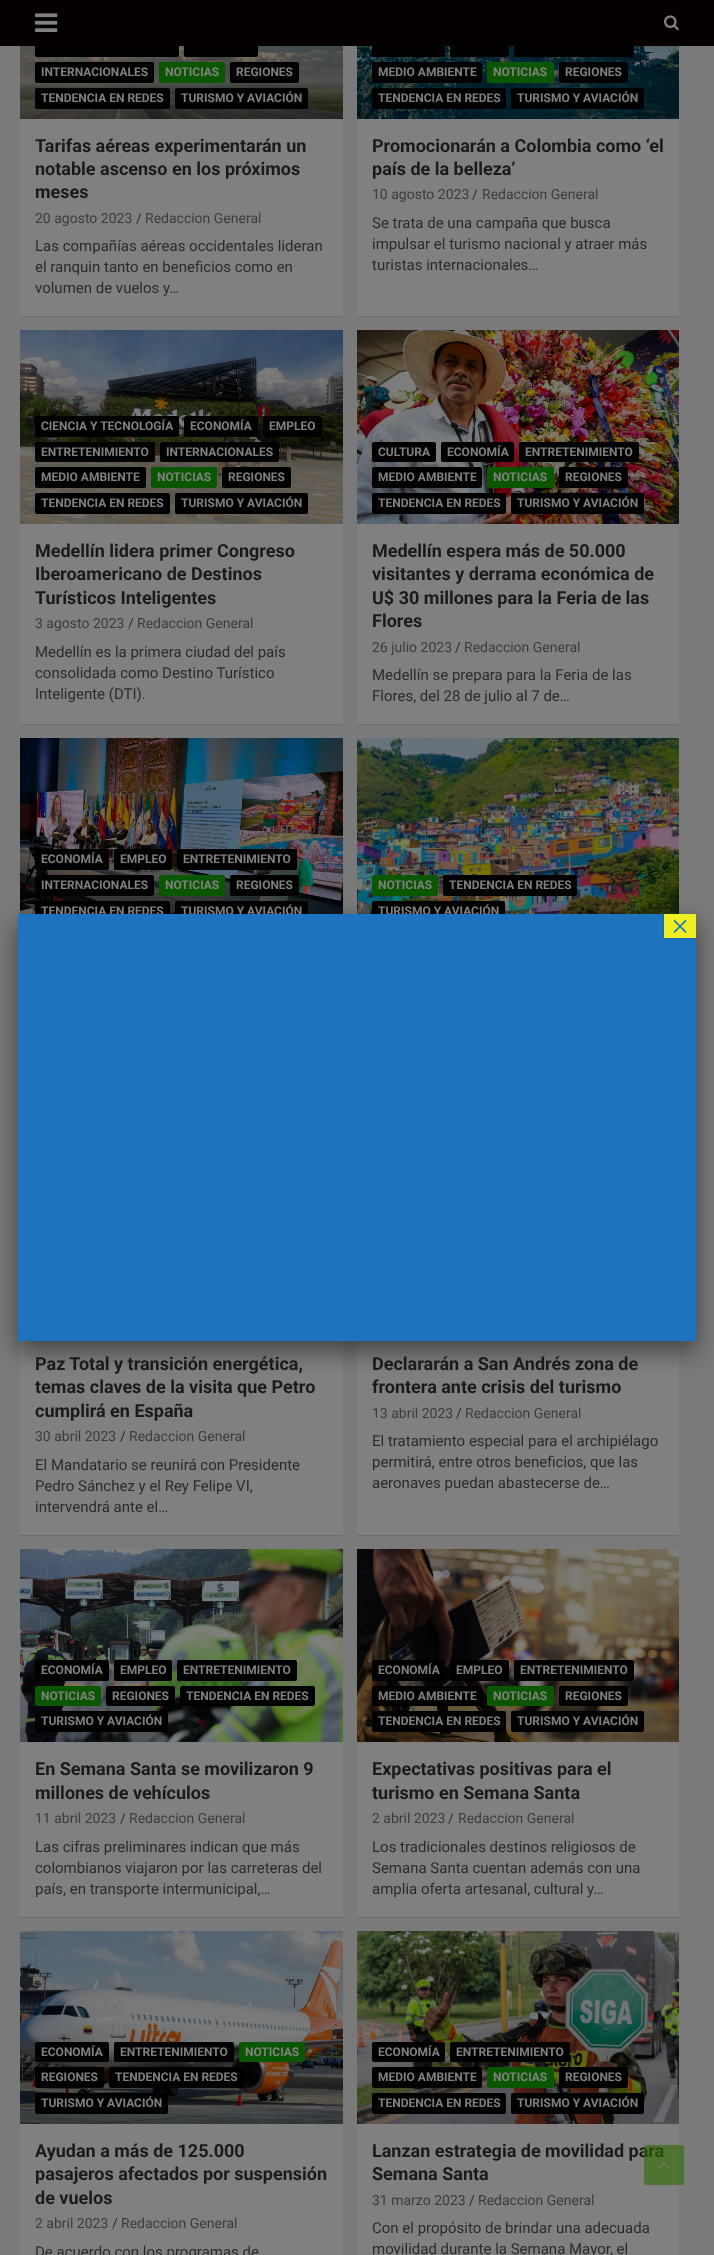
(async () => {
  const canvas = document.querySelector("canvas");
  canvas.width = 714;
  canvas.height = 2255;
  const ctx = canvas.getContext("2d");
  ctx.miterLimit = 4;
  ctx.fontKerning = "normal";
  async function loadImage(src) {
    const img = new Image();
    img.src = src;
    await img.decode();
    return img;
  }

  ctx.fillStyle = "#7a7a7a";
  ctx.fillRect(0, 0, 714, 2255);
  ctx.fillStyle = "rgba(0, 0, 0, 0.1)";
  ctx.filter = "blur(0.5px)";
  ctx.beginPath();
  ctx.rect(20, -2, 323, 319);
  ctx.fill();
  ctx.filter = "none";
  ctx.drawImage(await loadImage("img/3.png"), 20, 46, 323, 73);
  ctx.fillStyle = "#000000";
  ctx.beginPath();
  ctx.roundRect(35, 36, 144, 21, 2);
  ctx.fill();
  ctx.beginPath();
  ctx.roundRect(184, 36, 74, 21, 2);
  ctx.fill();
  ctx.fillStyle = "rgba(0, 0, 0, 0.1)";
  ctx.filter = "blur(0.5px)";
  ctx.beginPath();
  ctx.rect(357, -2, 322, 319);
  ctx.fill();
  ctx.filter = "none";
  ctx.drawImage(await loadImage("img/4.png"), 357, 46, 322, 73);
  ctx.fillStyle = "#000000";
  ctx.beginPath();
  ctx.roundRect(372, 36, 73, 21, 2);
  ctx.fill();
  ctx.beginPath();
  ctx.roundRect(450, 36, 59, 21, 2);
  ctx.fill();
  ctx.beginPath();
  ctx.roundRect(514, 36, 120, 21, 2);
  ctx.fill();
  ctx.fillStyle = "#050000";
  ctx.fillRect(0, 0, 714, 46);
  ctx.drawImage(await loadImage("img/1.png"), 35, 13, 23, 19);
  ctx.drawImage(await loadImage("img/2.png"), 664, 15, 15, 16);
  ctx.fillStyle = "#808080";
  ctx.fillRect(20, 119, 323, 197);
  ctx.fillStyle = "#000000";
  ctx.beginPath();
  ctx.roundRect(35, 62, 119, 21, 2);
  ctx.fill();
  ctx.fillStyle = "#0a5700";
  ctx.beginPath();
  ctx.roundRect(159, 62, 66, 21, 2);
  ctx.fill();
  ctx.fillStyle = "#000000";
  ctx.beginPath();
  ctx.roundRect(230, 62, 69, 21, 2);
  ctx.fill();
  ctx.beginPath();
  ctx.roundRect(35, 88, 135, 21, 2);
  ctx.fill();
  ctx.beginPath();
  ctx.roundRect(175, 88, 133, 21, 2);
  ctx.fill();
  ctx.fillStyle = "#808080";
  ctx.fillRect(357, 119, 322, 197);
  ctx.fillStyle = "#000000";
  ctx.beginPath();
  ctx.roundRect(372, 62, 110, 21, 2);
  ctx.fill();
  ctx.fillStyle = "#0a5700";
  ctx.beginPath();
  ctx.roundRect(487, 62, 67, 21, 2);
  ctx.fill();
  ctx.fillStyle = "#000000";
  ctx.beginPath();
  ctx.roundRect(559, 62, 69, 21, 2);
  ctx.fill();
  ctx.beginPath();
  ctx.roundRect(372, 88, 134, 21, 2);
  ctx.fill();
  ctx.beginPath();
  ctx.roundRect(511, 88, 133, 21, 2);
  ctx.fill();
  ctx.fillStyle = "rgba(0, 0, 0, 0.1)";
  ctx.filter = "blur(0.5px)";
  ctx.beginPath();
  ctx.rect(20, 331, 323, 394);
  ctx.fill();
  ctx.filter = "none";
  ctx.fillStyle = "#808080";
  ctx.fillRect(20, 524, 323, 200);
  ctx.drawImage(await loadImage("img/5.png"), 20, 330, 323, 194);
  ctx.fillStyle = "#000000";
  ctx.beginPath();
  ctx.roundRect(35, 416, 144, 21, 2);
  ctx.fill();
  ctx.beginPath();
  ctx.roundRect(184, 416, 74, 21, 2);
  ctx.fill();
  ctx.beginPath();
  ctx.roundRect(263, 416, 59, 21, 2);
  ctx.fill();
  ctx.beginPath();
  ctx.roundRect(35, 442, 120, 20, 2);
  ctx.fill();
  ctx.beginPath();
  ctx.roundRect(160, 442, 119, 20, 2);
  ctx.fill();
  ctx.beginPath();
  ctx.roundRect(35, 467, 111, 21, 2);
  ctx.fill();
  ctx.fillStyle = "#0a5700";
  ctx.beginPath();
  ctx.roundRect(151, 467, 66, 21, 2);
  ctx.fill();
  ctx.fillStyle = "#000000";
  ctx.beginPath();
  ctx.roundRect(222, 467, 69, 21, 2);
  ctx.fill();
  ctx.beginPath();
  ctx.roundRect(35, 493, 135, 21, 2);
  ctx.fill();
  ctx.beginPath();
  ctx.roundRect(175, 493, 133, 21, 2);
  ctx.fill();
  ctx.fillStyle = "rgba(0, 0, 0, 0.1)";
  ctx.filter = "blur(0.5px)";
  ctx.beginPath();
  ctx.rect(357, 331, 322, 394);
  ctx.fill();
  ctx.filter = "none";
  ctx.fillStyle = "#808080";
  ctx.fillRect(357, 524, 322, 200);
  ctx.drawImage(await loadImage("img/6.png"), 357, 330, 322, 194);
  ctx.fillStyle = "#000000";
  ctx.beginPath();
  ctx.roundRect(372, 442, 64, 20, 2);
  ctx.fill();
  ctx.beginPath();
  ctx.roundRect(441, 442, 73, 20, 2);
  ctx.fill();
  ctx.beginPath();
  ctx.roundRect(519, 442, 120, 20, 2);
  ctx.fill();
  ctx.beginPath();
  ctx.roundRect(372, 467, 110, 21, 2);
  ctx.fill();
  ctx.fillStyle = "#0a5700";
  ctx.beginPath();
  ctx.roundRect(487, 467, 67, 21, 2);
  ctx.fill();
  ctx.fillStyle = "#000000";
  ctx.beginPath();
  ctx.roundRect(559, 467, 69, 21, 2);
  ctx.fill();
  ctx.beginPath();
  ctx.roundRect(372, 493, 134, 21, 2);
  ctx.fill();
  ctx.beginPath();
  ctx.roundRect(511, 493, 133, 21, 2);
  ctx.fill();
  ctx.drawImage(await loadImage("img/7.png"), 20, 738, 323, 176);
  ctx.beginPath();
  ctx.roundRect(35, 849, 74, 21, 2);
  ctx.fill();
  ctx.beginPath();
  ctx.roundRect(114, 849, 58, 21, 2);
  ctx.fill();
  ctx.beginPath();
  ctx.roundRect(177, 849, 120, 21, 2);
  ctx.fill();
  ctx.beginPath();
  ctx.roundRect(35, 875, 119, 21, 2);
  ctx.fill();
  ctx.fillStyle = "#0a5700";
  ctx.beginPath();
  ctx.roundRect(159, 875, 66, 21, 2);
  ctx.fill();
  ctx.fillStyle = "#000000";
  ctx.beginPath();
  ctx.roundRect(230, 875, 69, 21, 2);
  ctx.fill();
  ctx.beginPath();
  ctx.roundRect(35, 901, 135, 21, 2);
  ctx.fill();
  ctx.beginPath();
  ctx.roundRect(175, 901, 133, 21, 2);
  ctx.fill();
  ctx.drawImage(await loadImage("img/8.png"), 357, 738, 322, 176);
  ctx.fillStyle = "#0a5700";
  ctx.beginPath();
  ctx.roundRect(372, 875, 66, 21, 2);
  ctx.fill();
  ctx.fillStyle = "#000000";
  ctx.beginPath();
  ctx.roundRect(443, 875, 134, 21, 2);
  ctx.fill();
  ctx.beginPath();
  ctx.roundRect(372, 901, 133, 21, 2);
  ctx.fill();
  ctx.fillStyle = "rgba(0, 0, 0, 0.1)";
  ctx.filter = "blur(0.5px)";
  ctx.beginPath();
  ctx.rect(20, 1144, 323, 392);
  ctx.fill();
  ctx.filter = "none";
  ctx.fillStyle = "#808080";
  ctx.fillRect(20, 1341, 323, 194);
  ctx.fillStyle = "rgba(0, 0, 0, 0.1)";
  ctx.filter = "blur(0.5px)";
  ctx.beginPath();
  ctx.rect(357, 1144, 322, 392);
  ctx.fill();
  ctx.filter = "none";
  ctx.fillStyle = "#808080";
  ctx.fillRect(357, 1341, 322, 194);
  ctx.fillStyle = "rgba(0, 0, 0, 0.1)";
  ctx.filter = "blur(0.5px)";
  ctx.beginPath();
  ctx.rect(20, 1550, 323, 368);
  ctx.fill();
  ctx.filter = "none";
  ctx.fillStyle = "#808080";
  ctx.fillRect(20, 1742, 323, 175);
  ctx.drawImage(await loadImage("img/9.png"), 20, 1549, 323, 193);
  ctx.fillStyle = "#000000";
  ctx.beginPath();
  ctx.roundRect(35, 1660, 74, 21, 2);
  ctx.fill();
  ctx.beginPath();
  ctx.roundRect(114, 1660, 58, 21, 2);
  ctx.fill();
  ctx.beginPath();
  ctx.roundRect(177, 1660, 120, 21, 2);
  ctx.fill();
  ctx.fillStyle = "#0a5700";
  ctx.beginPath();
  ctx.roundRect(35, 1686, 66, 20, 2);
  ctx.fill();
  ctx.fillStyle = "#000000";
  ctx.beginPath();
  ctx.roundRect(106, 1686, 69, 20, 2);
  ctx.fill();
  ctx.beginPath();
  ctx.roundRect(180, 1686, 135, 20, 2);
  ctx.fill();
  ctx.beginPath();
  ctx.roundRect(35, 1711, 133, 21, 2);
  ctx.fill();
  ctx.fillStyle = "rgba(0, 0, 0, 0.1)";
  ctx.filter = "blur(0.5px)";
  ctx.beginPath();
  ctx.rect(357, 1550, 322, 368);
  ctx.fill();
  ctx.filter = "none";
  ctx.fillStyle = "#808080";
  ctx.fillRect(357, 1742, 322, 175);
  ctx.drawImage(await loadImage("img/10.png"), 357, 1549, 322, 193);
  ctx.fillStyle = "#000000";
  ctx.beginPath();
  ctx.roundRect(372, 1660, 73, 21, 2);
  ctx.fill();
  ctx.beginPath();
  ctx.roundRect(450, 1660, 59, 21, 2);
  ctx.fill();
  ctx.beginPath();
  ctx.roundRect(514, 1660, 120, 21, 2);
  ctx.fill();
  ctx.beginPath();
  ctx.roundRect(372, 1686, 110, 20, 2);
  ctx.fill();
  ctx.fillStyle = "#0a5700";
  ctx.beginPath();
  ctx.roundRect(487, 1686, 67, 20, 2);
  ctx.fill();
  ctx.fillStyle = "#000000";
  ctx.beginPath();
  ctx.roundRect(559, 1686, 69, 20, 2);
  ctx.fill();
  ctx.beginPath();
  ctx.roundRect(372, 1711, 134, 21, 2);
  ctx.fill();
  ctx.beginPath();
  ctx.roundRect(511, 1711, 133, 21, 2);
  ctx.fill();
  ctx.fillStyle = "#808080";
  ctx.fillRect(20, 2124, 323, 131);
  ctx.drawImage(await loadImage("img/11.png"), 20, 1931, 323, 193);
  ctx.fillStyle = "#000000";
  ctx.beginPath();
  ctx.roundRect(35, 2042, 74, 20, 2);
  ctx.fill();
  ctx.beginPath();
  ctx.roundRect(114, 2042, 120, 20, 2);
  ctx.fill();
  ctx.fillStyle = "#0a5700";
  ctx.beginPath();
  ctx.roundRect(239, 2042, 66, 20, 2);
  ctx.fill();
  ctx.fillStyle = "#000000";
  ctx.beginPath();
  ctx.roundRect(35, 2067, 69, 21, 2);
  ctx.fill();
  ctx.beginPath();
  ctx.roundRect(109, 2067, 135, 21, 2);
  ctx.fill();
  ctx.beginPath();
  ctx.roundRect(35, 2093, 133, 21, 2);
  ctx.fill();
  ctx.fillStyle = "#808080";
  ctx.fillRect(357, 2124, 322, 131);
  ctx.drawImage(await loadImage("img/12.png"), 357, 1931, 322, 193);
  ctx.fillStyle = "#000000";
  ctx.beginPath();
  ctx.roundRect(372, 2042, 73, 20, 2);
  ctx.fill();
  ctx.beginPath();
  ctx.roundRect(450, 2042, 120, 20, 2);
  ctx.fill();
  ctx.beginPath();
  ctx.roundRect(372, 2067, 110, 21, 2);
  ctx.fill();
  ctx.fillStyle = "#0a5700";
  ctx.beginPath();
  ctx.roundRect(487, 2067, 67, 21, 2);
  ctx.fill();
  ctx.fillStyle = "#000000";
  ctx.beginPath();
  ctx.roundRect(559, 2067, 69, 21, 2);
  ctx.fill();
  ctx.beginPath();
  ctx.roundRect(372, 2093, 134, 21, 2);
  ctx.fill();
  ctx.beginPath();
  ctx.roundRect(511, 2093, 133, 21, 2);
  ctx.fill();
  ctx.fillStyle = "rgba(2, 2, 2, 0.5)";
  ctx.filter = "blur(12.5px)";
  ctx.beginPath();
  ctx.rect(18, 924, 678, 427);
  ctx.fill();
  ctx.filter = "none";
  ctx.font = "bold 12px Roboto";
  ctx.fillStyle = "#808080";
  for (const [text, x, y] of [
    ["INTERNACIONALES", 41, 76],
    ["NOTICIAS", 165, 76],
    ["REGIONES", 236, 76],
    ["TENDENCIA EN REDES", 41, 102],
    ["TURISMO Y AVIACIÓN", 181, 102],
  ]) {
    ctx.fillText(text, x, y);
  }
  ctx.font = "bold 18px Roboto";
  ctx.fillStyle = "#1a1a1a";
  for (const [text, x, y] of [
    ["Tarifas aéreas experimentarán un", 35, 152],
    ["notable ascenso en los próximos", 35, 175],
    ["meses", 35, 198],
  ]) {
    ctx.fillText(text, x, y);
  }
  ctx.font = "14px Roboto";
  ctx.fillStyle = "#3c3c3c";
  ctx.fillText("20 agosto 2023", 35, 223);
  ctx.fillStyle = "#2b2b2b";
  ctx.fillText("/", 136, 223);
  ctx.fillStyle = "#3c3c3c";
  ctx.fillText("Redaccion General", 145, 223);
  ctx.font = "15px Roboto";
  ctx.fillStyle = "#2b2b2b";
  for (const [text, x, y] of [
    ["Las compañías aéreas occidentales lideran", 35, 251],
    ["el ranquin tanto en beneficios como en", 35, 272],
    ["volumen de vuelos y…", 35, 293],
  ]) {
    ctx.fillText(text, x, y);
  }
  ctx.font = "bold 12px Roboto";
  ctx.fillStyle = "#808080";
  for (const [text, x, y] of [
    ["MEDIO AMBIENTE", 378, 76],
    ["NOTICIAS", 493, 76],
    ["REGIONES", 565, 76],
    ["TENDENCIA EN REDES", 378, 102],
    ["TURISMO Y AVIACIÓN", 517, 102],
  ]) {
    ctx.fillText(text, x, y);
  }
  ctx.font = "bold 18px Roboto";
  ctx.fillStyle = "#1a1a1a";
  ctx.fillText("Promocionarán a Colombia como ‘el", 372, 152);
  ctx.fillText("país de la belleza’", 372, 175);
  ctx.font = "14px Roboto";
  ctx.fillStyle = "#3c3c3c";
  ctx.fillText("10 agosto 2023", 372, 199);
  ctx.fillStyle = "#2b2b2b";
  ctx.fillText("/", 472, 199);
  ctx.fillStyle = "#3c3c3c";
  ctx.fillText("Redaccion General", 482, 199);
  ctx.font = "15px Roboto";
  ctx.fillStyle = "#2b2b2b";
  for (const [text, x, y] of [
    ["Se trata de una campaña que busca", 372, 228],
    ["impulsar el turismo nacional y atraer más", 372, 249],
    ["turistas internacionales…", 372, 270],
  ]) {
    ctx.fillText(text, x, y);
  }
  ctx.font = "bold 12px Roboto";
  ctx.fillStyle = "#808080";
  for (const [text, x, y] of [
    ["CIENCIA Y TECNOLOGÍA", 41, 430],
    ["ECONOMÍA", 190, 430],
    ["EMPLEO", 269, 430],
    ["ENTRETENIMIENTO", 41, 456],
    ["INTERNACIONALES", 166, 456],
    ["MEDIO AMBIENTE", 41, 481],
    ["NOTICIAS", 157, 481],
    ["REGIONES", 228, 481],
    ["TENDENCIA EN REDES", 41, 507],
    ["TURISMO Y AVIACIÓN", 181, 507],
  ]) {
    ctx.fillText(text, x, y);
  }
  ctx.font = "bold 18px Roboto";
  ctx.fillStyle = "#1a1a1a";
  for (const [text, x, y] of [
    ["Medellín lidera primer Congreso", 35, 557],
    ["Iberoamericano de Destinos", 35, 580],
    ["Turísticos Inteligentes", 35, 604],
  ]) {
    ctx.fillText(text, x, y);
  }
  ctx.font = "14px Roboto";
  ctx.fillStyle = "#3c3c3c";
  ctx.fillText("3 agosto 2023", 35, 628);
  ctx.fillStyle = "#2b2b2b";
  ctx.fillText("/", 128, 628);
  ctx.fillStyle = "#3c3c3c";
  ctx.fillText("Redaccion General", 137, 628);
  ctx.font = "15px Roboto";
  ctx.fillStyle = "#2b2b2b";
  for (const [text, x, y] of [
    ["Medellín es la primera ciudad del país", 35, 657],
    ["consolidada como Destino Turístico", 35, 678],
    ["Inteligente (DTI).", 35, 699],
  ]) {
    ctx.fillText(text, x, y);
  }
  ctx.font = "bold 12px Roboto";
  ctx.fillStyle = "#808080";
  for (const [text, x, y] of [
    ["CULTURA", 378, 456],
    ["ECONOMÍA", 447, 456],
    ["ENTRETENIMIENTO", 525, 456],
    ["MEDIO AMBIENTE", 378, 481],
    ["NOTICIAS", 493, 481],
    ["REGIONES", 565, 481],
    ["TENDENCIA EN REDES", 378, 507],
    ["TURISMO Y AVIACIÓN", 517, 507],
  ]) {
    ctx.fillText(text, x, y);
  }
  ctx.font = "bold 18px Roboto";
  ctx.fillStyle = "#1a1a1a";
  for (const [text, x, y] of [
    ["Medellín espera más de 50.000", 372, 557],
    ["visitantes y derrama económica de", 372, 580],
    ["U$ 30 millones para la Feria de las", 372, 604],
    ["Flores", 372, 627],
  ]) {
    ctx.fillText(text, x, y);
  }
  ctx.font = "14px Roboto";
  ctx.fillStyle = "#3c3c3c";
  ctx.fillText("26 julio 2023", 372, 652);
  ctx.fillStyle = "#2b2b2b";
  ctx.fillText("/", 455, 652);
  ctx.fillStyle = "#3c3c3c";
  ctx.fillText("Redaccion General", 464, 652);
  ctx.font = "15px Roboto";
  ctx.fillStyle = "#2b2b2b";
  ctx.fillText("Medellín se prepara para la Feria de las", 372, 680);
  ctx.fillText("Flores, del 28 de julio al 7 de…", 372, 701);
  ctx.font = "bold 12px Roboto";
  ctx.fillStyle = "#808080";
  for (const [text, x, y] of [
    ["ECONOMÍA", 41, 863],
    ["EMPLEO", 120, 863],
    ["ENTRETENIMIENTO", 183, 863],
    ["INTERNACIONALES", 41, 889],
    ["NOTICIAS", 165, 889],
    ["REGIONES", 236, 889],
    ["TENDENCIA EN REDES", 41, 915],
    ["TURISMO Y AVIACIÓN", 181, 915],
    ["NOTICIAS", 378, 889],
    ["TENDENCIA EN REDES", 449, 889],
    ["TURISMO Y AVIACIÓN", 378, 915],
  ]) {
    ctx.fillText(text, x, y);
  }
  ctx.font = "bold 18px Roboto";
  ctx.fillStyle = "#1a1a1a";
  for (const [text, x, y] of [
    ["Paz Total y transición energética,", 35, 1370],
    ["temas claves de la visita que Petro", 35, 1393],
    ["cumplirá en España", 35, 1417],
  ]) {
    ctx.fillText(text, x, y);
  }
  ctx.font = "14px Roboto";
  ctx.fillStyle = "#3c3c3c";
  ctx.fillText("30 abril 2023", 35, 1441);
  ctx.fillStyle = "#2b2b2b";
  ctx.fillText("/", 120, 1441);
  ctx.fillStyle = "#3c3c3c";
  ctx.fillText("Redaccion General", 129, 1441);
  ctx.font = "15px Roboto";
  ctx.fillStyle = "#2b2b2b";
  for (const [text, x, y] of [
    ["El Mandatario se reunirá con Presidente", 35, 1470],
    ["Pedro Sánchez y el Rey Felipe VI,", 35, 1491],
    ["intervendrá ante el…", 35, 1512],
  ]) {
    ctx.fillText(text, x, y);
  }
  ctx.font = "bold 18px Roboto";
  ctx.fillStyle = "#1a1a1a";
  ctx.fillText("Declararán a San Andrés zona de", 372, 1370);
  ctx.fillText("frontera ante crisis del turismo", 372, 1393);
  ctx.font = "14px Roboto";
  ctx.fillStyle = "#3c3c3c";
  ctx.fillText("13 abril 2023", 372, 1418);
  ctx.fillStyle = "#2b2b2b";
  ctx.fillText("/", 456, 1418);
  ctx.fillStyle = "#3c3c3c";
  ctx.fillText("Redaccion General", 465, 1418);
  ctx.font = "15px Roboto";
  ctx.fillStyle = "#2b2b2b";
  for (const [text, x, y] of [
    ["El tratamiento especial para el archipiélago", 372, 1446],
    ["permitirá, entre otros beneficios, que las", 372, 1467],
    ["aeronaves puedan abastecerse de…", 372, 1488],
  ]) {
    ctx.fillText(text, x, y);
  }
  ctx.font = "bold 12px Roboto";
  ctx.fillStyle = "#808080";
  for (const [text, x, y] of [
    ["ECONOMÍA", 41, 1674],
    ["EMPLEO", 120, 1674],
    ["ENTRETENIMIENTO", 183, 1674],
    ["NOTICIAS", 41, 1700],
    ["REGIONES", 112, 1700],
    ["TENDENCIA EN REDES", 186, 1700],
    ["TURISMO Y AVIACIÓN", 41, 1725],
  ]) {
    ctx.fillText(text, x, y);
  }
  ctx.font = "bold 18px Roboto";
  ctx.fillStyle = "#1a1a1a";
  ctx.fillText("En Semana Santa se movilizaron 9", 35, 1775);
  ctx.fillText("millones de vehículos", 35, 1799);
  ctx.font = "14px Roboto";
  ctx.fillStyle = "#3c3c3c";
  ctx.fillText("11 abril 2023", 35, 1823);
  ctx.fillStyle = "#2b2b2b";
  ctx.fillText("/", 120, 1823);
  ctx.fillStyle = "#3c3c3c";
  ctx.fillText("Redaccion General", 129, 1823);
  ctx.font = "15px Roboto";
  ctx.fillStyle = "#2b2b2b";
  for (const [text, x, y] of [
    ["Las cifras preliminares indican que más", 35, 1852],
    ["colombianos viajaron por las carreteras del", 35, 1873],
    ["país, en transporte intermunicipal,…", 35, 1894],
  ]) {
    ctx.fillText(text, x, y);
  }
  ctx.font = "bold 12px Roboto";
  ctx.fillStyle = "#808080";
  for (const [text, x, y] of [
    ["ECONOMÍA", 378, 1674],
    ["EMPLEO", 456, 1674],
    ["ENTRETENIMIENTO", 520, 1674],
    ["MEDIO AMBIENTE", 378, 1700],
    ["NOTICIAS", 493, 1700],
    ["REGIONES", 565, 1700],
    ["TENDENCIA EN REDES", 378, 1725],
    ["TURISMO Y AVIACIÓN", 517, 1725],
  ]) {
    ctx.fillText(text, x, y);
  }
  ctx.font = "bold 18px Roboto";
  ctx.fillStyle = "#1a1a1a";
  ctx.fillText("Expectativas positivas para el", 372, 1775);
  ctx.fillText("turismo en Semana Santa", 372, 1799);
  ctx.font = "14px Roboto";
  ctx.fillStyle = "#3c3c3c";
  ctx.fillText("2 abril 2023", 372, 1823);
  ctx.fillStyle = "#2b2b2b";
  ctx.fillText("/", 448, 1823);
  ctx.fillStyle = "#3c3c3c";
  ctx.fillText("Redaccion General", 458, 1823);
  ctx.font = "15px Roboto";
  ctx.fillStyle = "#2b2b2b";
  for (const [text, x, y] of [
    ["Los tradicionales destinos religiosos de", 372, 1852],
    ["Semana Santa cuentan además con una", 372, 1873],
    ["amplia oferta artesanal, cultural y…", 372, 1894],
  ]) {
    ctx.fillText(text, x, y);
  }
  ctx.font = "bold 12px Roboto";
  ctx.fillStyle = "#808080";
  for (const [text, x, y] of [
    ["ECONOMÍA", 41, 2056],
    ["ENTRETENIMIENTO", 120, 2056],
    ["NOTICIAS", 245, 2056],
    ["REGIONES", 41, 2081],
    ["TENDENCIA EN REDES", 115, 2081],
    ["TURISMO Y AVIACIÓN", 41, 2107],
  ]) {
    ctx.fillText(text, x, y);
  }
  ctx.font = "bold 18px Roboto";
  ctx.fillStyle = "#1a1a1a";
  for (const [text, x, y] of [
    ["Ayudan a más de 125.000", 35, 2157],
    ["pasajeros afectados por suspensión", 35, 2180],
    ["de vuelos", 35, 2204],
  ]) {
    ctx.fillText(text, x, y);
  }
  ctx.font = "14px Roboto";
  ctx.fillStyle = "#3c3c3c";
  ctx.fillText("2 abril 2023", 35, 2228);
  ctx.fillStyle = "#2b2b2b";
  ctx.fillText("/", 112, 2228);
  ctx.fillStyle = "#3c3c3c";
  ctx.fillText("Redaccion General", 121, 2228);
  ctx.font = "15px Roboto";
  ctx.fillStyle = "#2b2b2b";
  ctx.fillText("De acuerdo con los programas de", 35, 2257);
  ctx.font = "bold 12px Roboto";
  ctx.fillStyle = "#808080";
  for (const [text, x, y] of [
    ["ECONOMÍA", 378, 2056],
    ["ENTRETENIMIENTO", 456, 2056],
    ["MEDIO AMBIENTE", 378, 2081],
    ["NOTICIAS", 493, 2081],
    ["REGIONES", 565, 2081],
    ["TENDENCIA EN REDES", 378, 2107],
    ["TURISMO Y AVIACIÓN", 517, 2107],
  ]) {
    ctx.fillText(text, x, y);
  }
  ctx.font = "bold 18px Roboto";
  ctx.fillStyle = "#1a1a1a";
  ctx.fillText("Lanzan estrategia de movilidad para", 372, 2157);
  ctx.fillText("Semana Santa", 372, 2180);
  ctx.font = "14px Roboto";
  ctx.fillStyle = "#3c3c3c";
  ctx.fillText("31 marzo 2023", 372, 2205);
  ctx.fillStyle = "#2b2b2b";
  ctx.fillText("/", 469, 2205);
  ctx.fillStyle = "#3c3c3c";
  ctx.fillText("Redaccion General", 478, 2205);
  ctx.font = "15px Roboto";
  ctx.fillStyle = "#2b2b2b";
  ctx.fillText("Con el propósito de brindar una adecuada", 372, 2233);
  ctx.fillText("movilidad durante la Semana Mayor, el", 372, 2254);
  ctx.fillStyle = "rgba(45, 107, 0, 0.6)";
  ctx.beginPath();
  ctx.roundRect(644, 2145, 40, 40, 3);
  ctx.fill();
  ctx.drawImage(await loadImage("img/13.png"), 658, 2162, 11, 7);
  ctx.fillStyle = "#1e73be";
  ctx.fillRect(18, 914, 678, 427);
  ctx.fillStyle = "rgba(2, 2, 2, 0.1)";
  ctx.filter = "blur(0.5px)";
  ctx.beginPath();
  ctx.rect(663, 915, 32, 24);
  ctx.fill();
  ctx.filter = "none";
  ctx.fillStyle = "#eeee22";
  ctx.fillRect(664, 914, 32, 24);
  ctx.font = "32px Liberation Serif";
  ctx.fillStyle = "#1e73be";
  ctx.fillText("×", 671, 937);
})();
